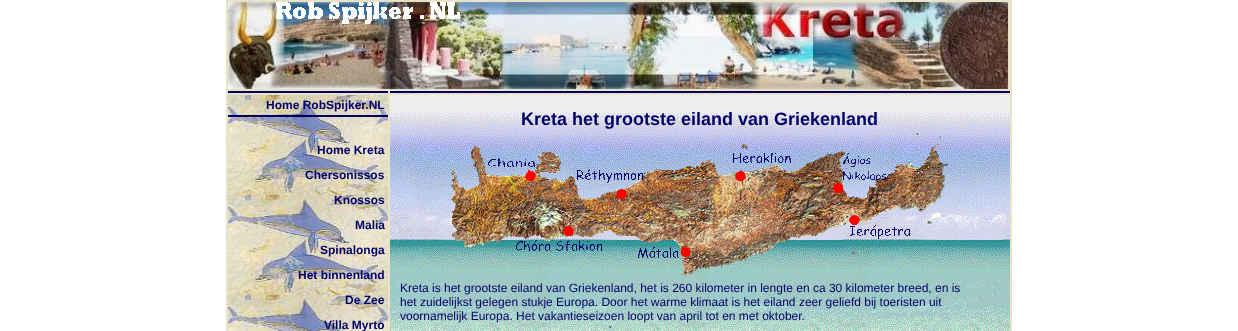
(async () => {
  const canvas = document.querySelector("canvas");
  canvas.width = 1238;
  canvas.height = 331;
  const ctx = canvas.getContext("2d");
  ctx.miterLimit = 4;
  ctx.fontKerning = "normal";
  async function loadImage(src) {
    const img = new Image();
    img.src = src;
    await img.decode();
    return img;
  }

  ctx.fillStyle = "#ffffff";
  ctx.fillRect(0, 0, 1238, 331);
  ctx.strokeStyle = "#e8e3c6";
  ctx.strokeRect(226.5, 0.5, 785, 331);
  ctx.fillStyle = "#e8e3c6";
  ctx.fillRect(227, 1, 784, 89);
  ctx.drawImage(await loadImage("img/1.png"), 228, 2, 780, 87);
  ctx.strokeRect(227.5, 90.5, 161, 3);
  ctx.fillStyle = "#010066";
  ctx.fillRect(228, 91, 160, 2);
  ctx.strokeRect(389.5, 90.5, 621, 3);
  ctx.fillRect(390, 91, 620, 2);
  ctx.fillStyle = "#e8e3c6";
  ctx.fillRect(227, 94, 162, 237);
  ctx.drawImage(await loadImage("img/2.png"), 228, 95, 160, 236);
  ctx.fillStyle = "#010066";
  ctx.fillRect(228, 115, 160, 2);
  ctx.drawImage(await loadImage("img/3.png"), 390, 95, 620, 236);
  ctx.strokeRect(389.5, 94.5, 621, 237);
  ctx.drawImage(await loadImage("img/4.png"), 449, 133, 502, 143);
  ctx.font = "bold 12px Liberation Sans";
  ctx.fillStyle = "#000066";
  for (const [text, x, y] of [
    ["Home RobSpijker.NL", 266, 109],
    ["Home Kreta", 317, 154],
    ["Chersonissos", 305, 179],
    ["Knossos", 334, 204],
    ["Malia", 355, 229],
    ["Spinalonga", 320, 254],
    ["Het binnenland", 298, 279],
    ["De Zee", 345, 304],
    ["Villa Myrto", 324, 329],
  ]) {
    ctx.fillText(text, x, y);
  }
  ctx.font = "bold 18px Liberation Sans";
  ctx.fillText("Kreta het grootste eiland van Griekenland", 521, 125);
  ctx.font = "12px Liberation Sans";
  for (const [text, x, y] of [
    ["Kreta is het grootste eiland van Griekenland, het is 260 kilometer in lengte en ca 30 kilometer breed, en is", 400, 292],
    ["het zuidelijkst gelegen stukje Europa. Door het warme klimaat is het eiland zeer geliefd bij toeristen uit", 400, 306],
    ["voornamelijk Europa. Het vakantieseizoen loopt van april tot en met oktober.", 400, 320],
    ["'", 609, 334],
  ]) {
    ctx.fillText(text, x, y);
  }
})();
